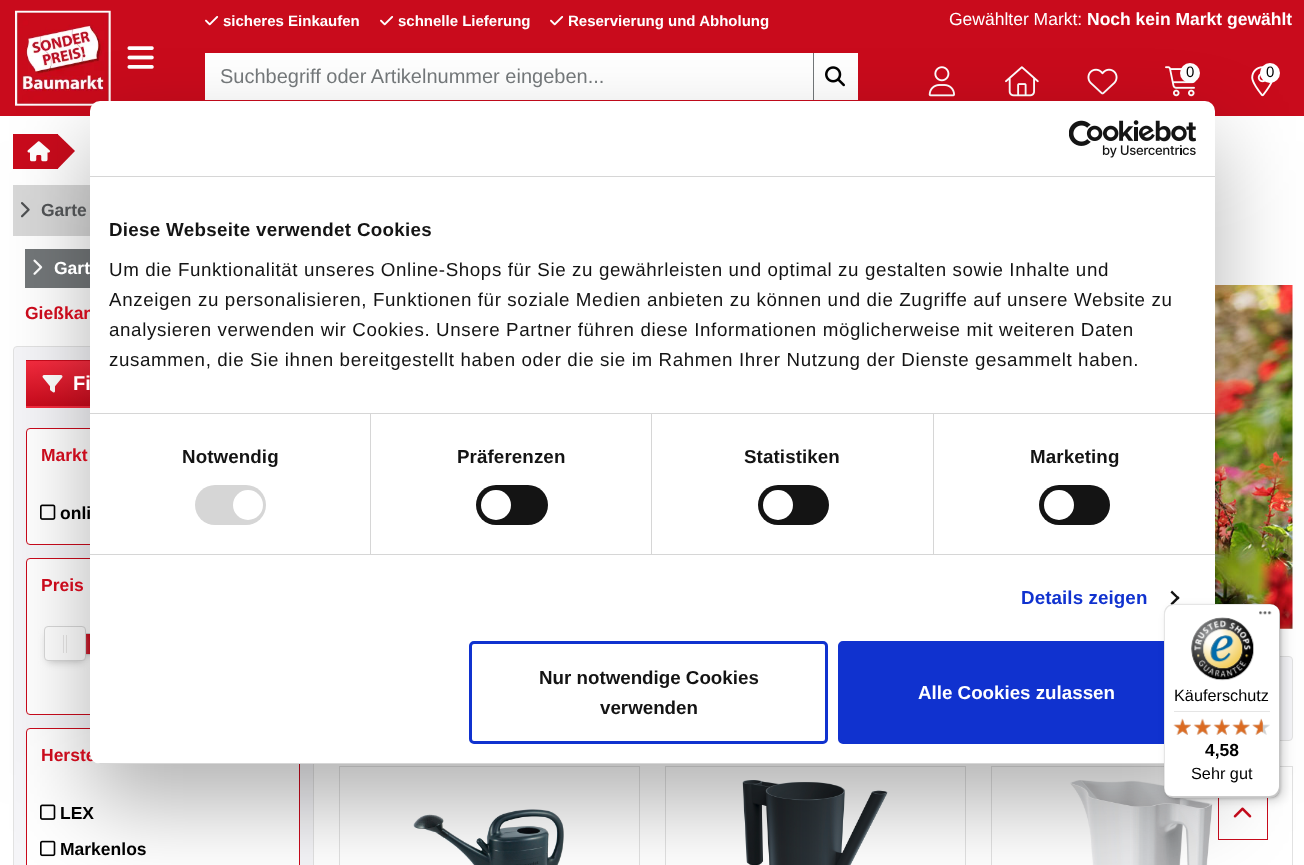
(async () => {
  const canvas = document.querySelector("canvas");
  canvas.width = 1304;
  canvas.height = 865;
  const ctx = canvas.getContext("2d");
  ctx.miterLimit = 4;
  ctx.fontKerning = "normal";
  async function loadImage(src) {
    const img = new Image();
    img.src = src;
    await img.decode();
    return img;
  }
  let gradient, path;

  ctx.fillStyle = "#ffffff";
  ctx.fillRect(0, 0, 1304, 865);
  ctx.fillStyle = "#c90b1c";
  ctx.fillRect(0, 0, 1304, 116);
  ctx.drawImage(await loadImage("img/1.png"), 15, 10, 96, 96);
  ctx.drawImage(await loadImage("img/2.png"), 127, 46, 27, 23);
  ctx.drawImage(await loadImage("img/3.png"), 205, 16, 14, 10);
  ctx.drawImage(await loadImage("img/3.png"), 380, 16, 14, 10);
  ctx.drawImage(await loadImage("img/3.png"), 550, 16, 14, 10);
  ctx.fillStyle = "#ffffff";
  ctx.fillRect(205, 53, 653, 47);
  ctx.fillStyle = "#737779";
  ctx.fillRect(813, 53, 1, 47);
  ctx.drawImage(await loadImage("img/4.png"), 825, 66, 20, 21);
  ctx.drawImage(await loadImage("img/5.png"), 928, 66, 27, 31);
  ctx.drawImage(await loadImage("img/6.png"), 1005, 66, 34, 31);
  ctx.drawImage(await loadImage("img/7.png"), 1087, 68, 31, 27);
  ctx.drawImage(await loadImage("img/8.png"), 1165, 66, 34, 31);
  ctx.fillStyle = "#ffffff";
  ctx.beginPath();
  ctx.arc(1190, 73, 10, 0, Math.PI * 2);
  ctx.fill();
  ctx.drawImage(await loadImage("img/9.png"), 1251, 66, 22, 31);
  ctx.beginPath();
  ctx.arc(1270, 73, 10, 0, Math.PI * 2);
  ctx.fill();
  ctx.fillStyle = "#c90b1c";
  ctx.fillRect(13, 134, 45, 35);
  ctx.drawImage(await loadImage("img/10.png"), 27, 141, 23, 21);
  path = new Path2D("M57.5 169V134L75 151Z");
  ctx.fill(path);
  ctx.fillStyle = "#d8d8d8";
  ctx.fillRect(13, 185, 77, 51);
  ctx.drawImage(await loadImage("img/11.png"), 21, 202, 9, 16);
  ctx.fillStyle = "#737779";
  ctx.fillRect(25, 249, 65, 39);
  ctx.drawImage(await loadImage("img/12.png"), 33, 259, 10, 16);
  ctx.fillStyle = "#f5f5f8";
  ctx.beginPath();
  ctx.roundRect(13.5, 346.5, 300, 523, 3.5);
  ctx.fill();
  ctx.strokeStyle = "#e2e2e2";
  ctx.stroke();
  gradient = ctx.createLinearGradient(163, 316, 163, 361);
  gradient.addColorStop(0, "#f52c3f");
  gradient.addColorStop(1, "#c90b1c");
  ctx.fillStyle = gradient;
  ctx.fillRect(26, 360, 64, 1);
  gradient = ctx.createLinearGradient(163, 361, 163, 406);
  gradient.addColorStop(0, "#f52c3f");
  gradient.addColorStop(1, "#c90b1c");
  ctx.fillStyle = gradient;
  ctx.fillRect(26, 361, 64, 45);
  gradient = ctx.createLinearGradient(163, 406, 163, 451);
  gradient.addColorStop(0, "#f52c3f");
  gradient.addColorStop(1, "#c90b1c");
  ctx.fillStyle = gradient;
  ctx.fillRect(26, 406, 64, 2);
  ctx.drawImage(await loadImage("img/13.png"), 42, 375, 21, 18);
  ctx.fillStyle = "#ffffff";
  ctx.beginPath();
  ctx.roundRect(26.5, 428.5, 273, 116, 3.5);
  ctx.fill();
  ctx.strokeStyle = "#ca0a1c";
  ctx.stroke();
  ctx.drawImage(await loadImage("img/14.png"), 40, 504, 16, 16);
  ctx.beginPath();
  ctx.roundRect(26.5, 558.5, 273, 156, 3.5);
  ctx.fill();
  ctx.stroke();
  ctx.fillStyle = "#bbbbbb";
  ctx.filter = "blur(4px)";
  ctx.beginPath();
  ctx.rect(71, 643, 184, 10);
  ctx.fill();
  ctx.filter = "none";
  ctx.strokeStyle = "#d3d3d3";
  ctx.strokeRect(65.5, 633.5, 195, 21);
  ctx.fillStyle = "#ca0a1c";
  ctx.fillRect(86, 634, 4, 20);
  ctx.fillStyle = "#bbbbbb";
  ctx.filter = "blur(4px)";
  ctx.beginPath();
  ctx.rect(48, 634, 35, 27);
  ctx.fill();
  ctx.filter = "none";
  ctx.fillStyle = "#ffffff";
  ctx.beginPath();
  ctx.roundRect(44.5, 626.5, 41, 34, 3.5);
  ctx.fill();
  ctx.strokeStyle = "#d9d9d9";
  ctx.stroke();
  ctx.fillStyle = "#e8e7e6";
  ctx.fillRect(63, 635, 1, 18);
  ctx.fillRect(66, 635, 1, 18);
  ctx.fillStyle = "#ffffff";
  ctx.beginPath();
  ctx.roundRect(26.5, 728.5, 273, 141, 3.5);
  ctx.fill();
  ctx.strokeStyle = "#ca0a1c";
  ctx.stroke();
  ctx.drawImage(await loadImage("img/14.png"), 40, 804, 16, 16);
  ctx.drawImage(await loadImage("img/15.png"), 40, 840, 16, 17);
  ctx.drawImage(await loadImage("img/16.png"), 1215, 285, 78, 344);
  ctx.fillStyle = "#f5f5f8";
  ctx.beginPath();
  ctx.roundRect(339.5, 656.5, 953, 84, 3.5);
  ctx.fill();
  ctx.strokeStyle = "#e2e2e2";
  ctx.stroke();
  ctx.strokeRect(339.5, 766.5, 300, 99);
  ctx.drawImage(await loadImage("img/17.png"), 413, 809, 151, 56);
  ctx.strokeRect(665.5, 766.5, 300, 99);
  ctx.drawImage(await loadImage("img/18.png"), 742, 780, 146, 85);
  ctx.strokeRect(991.5, 766.5, 301, 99);
  ctx.drawImage(await loadImage("img/19.png"), 1070, 780, 143, 85);
  ctx.strokeStyle = "#c90b1c";
  ctx.strokeRect(1218.5, 790.5, 49, 49);
  ctx.drawImage(await loadImage("img/20.png"), 1233, 807, 19, 11);
  ctx.fillStyle = "rgba(0, 0, 0, 0.3)";
  ctx.filter = "blur(42.5px)";
  ctx.beginPath();
  ctx.roundRect(90, 141, 1125, 663, 10);
  ctx.fill();
  ctx.filter = "none";
  ctx.font = "bold 15px Liberation Sans";
  ctx.fillStyle = "#ffffff";
  for (const [text, x, y] of [
    ["sicheres Einkaufen", 223, 26],
    ["schnelle Lieferung", 398, 26],
    ["Reservierung und Abholung", 568, 26],
  ]) {
    ctx.fillText(text, x, y);
  }
  ctx.font = "20px Liberation Sans";
  ctx.fillStyle = "#737779";
  ctx.fillText("Suchbegriff oder Artikelnummer eingeben...", 220, 83);
  ctx.font = "17.5px Liberation Sans";
  ctx.fillStyle = "#ffffff";
  ctx.fillText("Gewählter Markt:", 949, 25);
  ctx.font = "bold 17.5px Liberation Sans";
  ctx.fillText("Noch kein Markt gewählt", 1087, 25);
  ctx.font = "15px Liberation Sans";
  ctx.fillStyle = "#000000";
  ctx.fillText("0", 1186, 77);
  ctx.fillText("0", 1266, 77);
  ctx.font = "bold 17.5px Liberation Sans";
  ctx.fillStyle = "#4e5052";
  ctx.fillText("Garte", 41, 216);
  ctx.fillStyle = "#ffffff";
  ctx.fillText("Gart", 54, 274);
  ctx.fillStyle = "#c90b1c";
  ctx.fillText("Gießkan", 25, 319);
  ctx.font = "bold 20px Liberation Sans";
  ctx.fillStyle = "#ffffff";
  ctx.fillText("Fi", 73, 390);
  ctx.font = "bold 17.5px Liberation Sans";
  ctx.fillStyle = "#c90b1c";
  ctx.fillText("Markt", 41, 461);
  ctx.fillStyle = "#000000";
  ctx.fillText("onli", 60, 519);
  ctx.fillStyle = "#c90b1c";
  ctx.fillText("Preis", 41, 591);
  ctx.fillText("Herste", 41, 761);
  ctx.fillStyle = "#000000";
  ctx.fillText("LEX", 60, 819);
  ctx.fillText("Markenlos", 60, 855);
  ctx.fillStyle = "#ffffff";
  ctx.beginPath();
  ctx.roundRect(90, 101, 1125, 663, 10);
  ctx.fill();
  ctx.fillStyle = "#d6d6d6";
  ctx.fillRect(90, 176, 1125, 1);
  ctx.drawImage(await loadImage("img/21.png"), 1069, 120, 127, 38);
  ctx.fillRect(90, 413, 1125, 1);
  ctx.letterSpacing = "0.3px";
  ctx.font = "bold 18.75px Liberation Sans";
  ctx.fillStyle = "#141414";
  ctx.fillText("Diese Webseite verwendet Cookies", 109, 236);
  ctx.letterSpacing = "0.62px";
  ctx.font = "18.75px Liberation Sans";
  for (const [text, x, y] of [
    ["Um die Funktionalität unseres Online-Shops für Sie zu gewährleisten und optimal zu gestalten sowie Inhalte und", 109, 276],
    ["Anzeigen zu personalisieren, Funktionen für soziale Medien anbieten zu können und die Zugriffe auf unsere Website zu", 109, 306],
    ["analysieren verwenden wir Cookies. Unsere Partner führen diese Informationen möglicherweise mit weiteren Daten", 109, 336],
    ["zusammen, die Sie ihnen bereitgestellt haben oder die sie im Rahmen Ihrer Nutzung der Dienste gesammelt haben.", 109, 366],
  ]) {
    ctx.fillText(text, x, y);
  }
  ctx.fillStyle = "#d6d6d6";
  ctx.fillRect(90, 554, 1125, 1);
  ctx.fillRect(370, 414, 1, 140);
  ctx.letterSpacing = "0.1px";
  ctx.font = "bold 18.75px Liberation Sans";
  ctx.fillStyle = "#141414";
  ctx.fillText("Notwendig", 182, 463);
  ctx.fillStyle = "#d6d6d6";
  ctx.beginPath();
  ctx.roundRect(195, 485, 71, 40, 20);
  ctx.fill();
  ctx.fillStyle = "#ffffff";
  ctx.beginPath();
  ctx.arc(248, 505, 15, 0, Math.PI * 2);
  ctx.fill();
  ctx.fillStyle = "#d6d6d6";
  ctx.fillRect(651, 414, 1, 140);
  ctx.fillStyle = "#141414";
  ctx.fillText("Präferenzen", 457, 463);
  ctx.beginPath();
  ctx.roundRect(476, 485, 72, 40, 20);
  ctx.fill();
  ctx.fillStyle = "#ffffff";
  ctx.beginPath();
  ctx.arc(496, 505, 15, 0, Math.PI * 2);
  ctx.fill();
  ctx.fillStyle = "#d6d6d6";
  ctx.fillRect(933, 414, 1, 140);
  ctx.fillStyle = "#141414";
  ctx.fillText("Statistiken", 744, 463);
  ctx.beginPath();
  ctx.roundRect(758, 485, 71, 40, 20);
  ctx.fill();
  ctx.fillStyle = "#ffffff";
  ctx.beginPath();
  ctx.arc(778, 505, 15, 0, Math.PI * 2);
  ctx.fill();
  ctx.fillStyle = "#141414";
  ctx.fillText("Marketing", 1030, 463);
  ctx.beginPath();
  ctx.roundRect(1039, 485, 71, 40, 20);
  ctx.fill();
  ctx.fillStyle = "#ffffff";
  ctx.beginPath();
  ctx.arc(1059, 505, 15, 0, Math.PI * 2);
  ctx.fill();
  ctx.fillStyle = "#1032cf";
  ctx.fillText("Details zeigen", 1021, 604);
  ctx.fillStyle = "#141414";
  path = new Path2D("M1172 590.5L1179.5 598L1178 599.5L1170.5 592.5Z");
  ctx.fill(path);
  path = new Path2D("M1178 596L1179.5 598L1172 605.5L1170.5 603.5Z");
  ctx.fill(path);
  ctx.save();
  ctx.beginPath();
  ctx.roundRect(90, 101, 1125, 663, 10);
  ctx.clip();
  ctx.fillStyle = "#d6d6d6";
  ctx.fillRect(90, 763, 1074, 1);
  ctx.restore();
  ctx.beginPath();
  ctx.roundRect(470.5, 642.5, 356, 100, 3.5);
  ctx.strokeStyle = "#1032cf";
  ctx.lineWidth = 3;
  ctx.stroke();
  ctx.letterSpacing = "0px";
  ctx.fillText("Nur notwendige Cookies", 539, 684);
  ctx.fillText("verwenden", 600, 714);
  ctx.fillStyle = "#1032cf";
  ctx.beginPath();
  ctx.roundRect(839.5, 642.5, 355, 100, 3.5);
  ctx.fill();
  ctx.stroke();
  ctx.fillStyle = "#ffffff";
  ctx.fillText("Alle Cookies zulassen", 918, 699);
  ctx.fillStyle = "rgba(0, 0, 0, 0.15)";
  ctx.filter = "blur(5px)";
  ctx.beginPath();
  ctx.roundRect(1168, 608, 116, 193, 10);
  ctx.fill();
  ctx.filter = "none";
  ctx.filter = "blur(1px)";
  ctx.beginPath();
  ctx.roundRect(1165, 605, 116, 194, 10);
  ctx.fill();
  ctx.filter = "none";
  ctx.fillStyle = "#ffffff";
  ctx.beginPath();
  ctx.roundRect(1164, 604, 116, 194, 10);
  ctx.fill();
  ctx.fillStyle = "rgba(0, 0, 0, 0.1)";
  path = new Path2D("M1175 605H1271C1273 605 1275 605 1276 606C1275 605 1272 604 1270 604H1174C1168 604 1164 608 1164 614V788C1164 791 1165 794 1168 796C1166 794 1165 791 1165 789V615C1165 609 1169 605 1175 605Z");
  ctx.fill(path);
  ctx.fillStyle = "rgba(0, 0, 0, 0.2)";
  path = new Path2D("M1166 794C1168 796 1171 798 1174 798H1270C1276 798 1280 794 1280 788V614C1280 612 1279 610 1278 608C1279 609 1279 611 1279 612V786C1279 792 1274 796 1269 796H1172C1170 796 1168 795 1166 794Z");
  ctx.fill(path);
  ctx.fillStyle = "rgba(50, 50, 50, 0.2)";
  path = new Path2D("M1166 795C1168 797 1171 798 1174 798H1270C1276 798 1280 794 1280 788V614C1280 612 1279 609 1278 608C1279 609 1279 611 1279 613V787C1279 792 1275 797 1269 797H1173C1170 797 1168 796 1166 795Z");
  ctx.fill(path);
  ctx.fillStyle = "rgba(255, 255, 255, 0.3)";
  path = new Path2D("M1165 793C1167 796 1170 798 1174 798H1270C1276 798 1280 794 1280 788V614C1280 611 1279 608 1276 606C1278 608 1279 611 1279 613V787C1279 792 1275 797 1269 797H1173C1170 797 1167 795 1165 793Z");
  ctx.fill(path);
  ctx.drawImage(await loadImage("img/22.png"), 1259, 611, 13, 4);
  ctx.drawImage(await loadImage("img/23.png"), 1191, 617, 63, 64);
  ctx.font = "16.25px Liberation Sans";
  ctx.fillStyle = "#000000";
  ctx.fillText("Käuferschutz", 1174, 701);
  ctx.fillStyle = "#e5e5e5";
  ctx.fillRect(1174, 711, 96, 1);
  ctx.drawImage(await loadImage("img/29.png"), 1173, 719, 18, 16);
  ctx.drawImage(await loadImage("img/24.png"), 1173, 718, 18, 17);
  ctx.drawImage(await loadImage("img/30.png"), 1194, 719, 17, 16);
  ctx.drawImage(await loadImage("img/25.png"), 1193, 718, 19, 17);
  ctx.drawImage(await loadImage("img/31.png"), 1214, 719, 16, 16);
  ctx.drawImage(await loadImage("img/26.png"), 1213, 718, 17, 17);
  ctx.drawImage(await loadImage("img/32.png"), 1233, 719, 17, 16);
  ctx.drawImage(await loadImage("img/27.png"), 1232, 718, 18, 17);
  ctx.drawImage(await loadImage("img/33.png"), 1252, 719, 18, 16);
  ctx.drawImage(await loadImage("img/28.png"), 1252, 718, 11, 17);
  ctx.font = "bold 17.5px Liberation Sans";
  ctx.fillStyle = "#000000";
  ctx.fillText("4,58", 1205, 756);
  ctx.font = "16.25px Liberation Sans";
  ctx.fillText("Sehr gut", 1191, 779);
})();
